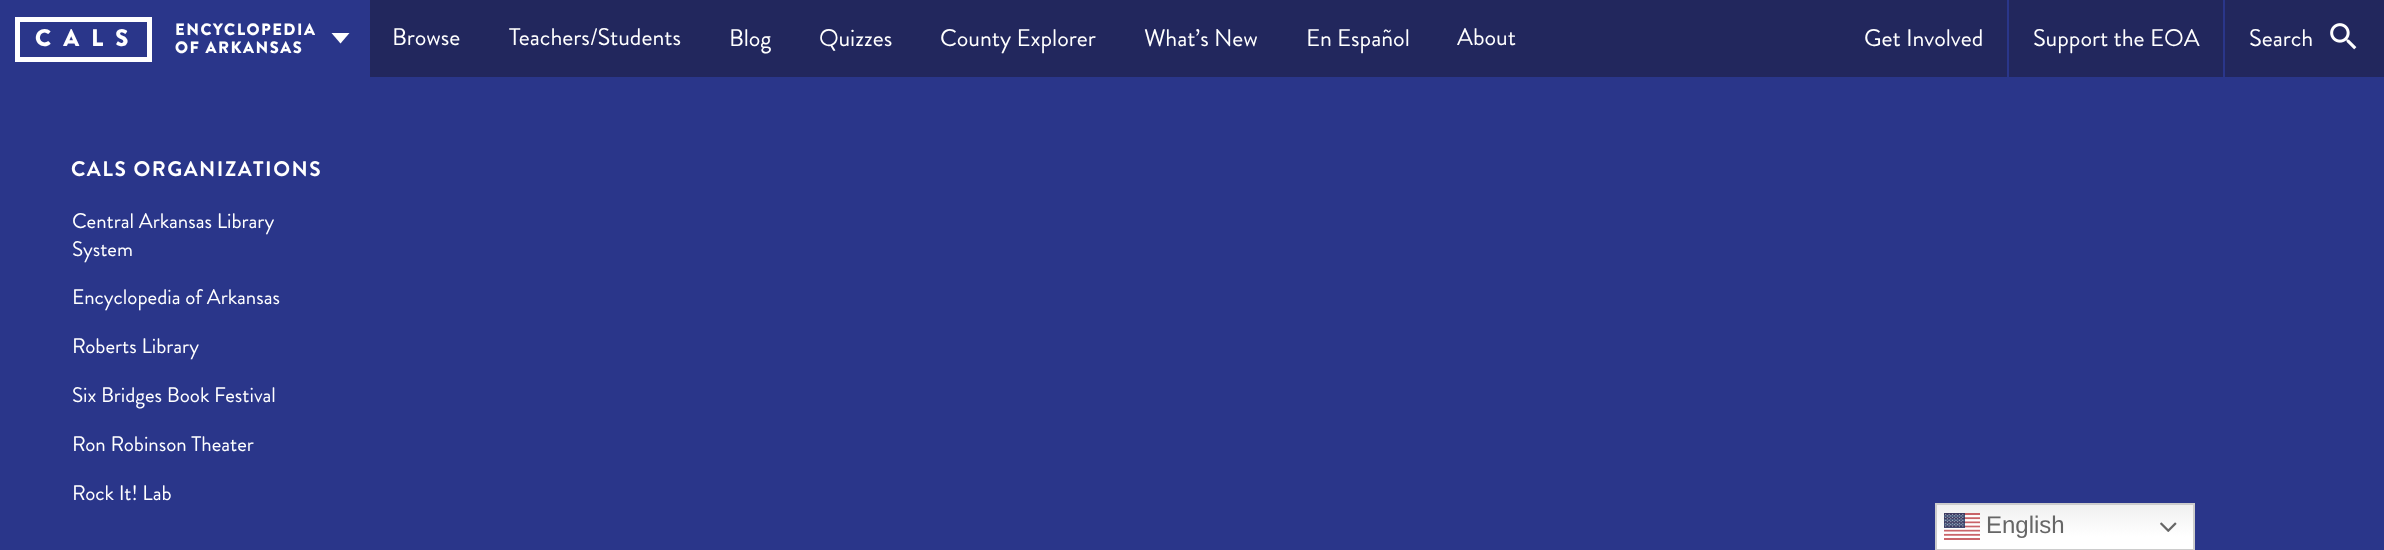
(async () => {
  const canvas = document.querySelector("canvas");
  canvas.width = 2384;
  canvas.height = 550;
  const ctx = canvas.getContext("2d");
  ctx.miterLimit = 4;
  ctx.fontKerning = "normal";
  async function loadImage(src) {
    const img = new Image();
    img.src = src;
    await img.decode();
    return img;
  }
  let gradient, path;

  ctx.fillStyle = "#2a368a";
  ctx.fillRect(0, 0, 2384, 550);
  ctx.fillStyle = "#22275d";
  ctx.fillRect(370, 0, 2014, 77);
  ctx.strokeStyle = "#ffffff";
  ctx.lineWidth = 5;
  ctx.strokeRect(17.5, 19.5, 132, 40);
  ctx.fillStyle = "#ffffff";
  path = new Path2D("M331.5 33H349.5L340.5 43.5Z");
  ctx.fill(path);
  ctx.fillStyle = "#2a368a";
  ctx.fillRect(2007, 0, 2, 77);
  ctx.fillRect(2223, 0, 2, 77);
  ctx.drawImage(await loadImage("img/1.png"), 2330, 23, 27, 27);
  gradient = ctx.createLinearGradient(2065, 503, 2065, 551);
  gradient.addColorStop(0, "#efefef");
  gradient.addColorStop(0.7, "#ffffff");
  ctx.fillStyle = gradient;
  ctx.fillRect(1937, 505, 256, 44);
  ctx.strokeStyle = "#cccccc";
  ctx.lineWidth = 2;
  ctx.strokeRect(1936, 504, 258, 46);
  ctx.drawImage(await loadImage("img/2.png"), 1944, 513, 36, 27);
  ctx.drawImage(await loadImage("img/3.png"), 2160, 522, 17, 10);
  ctx.letterSpacing = "12px";
  ctx.font = "900 24px Brandon Grotesque";
  ctx.fillStyle = "#ffffff";
  ctx.fillText("CALS", 35, 46);
  ctx.letterSpacing = "1.5px";
  ctx.font = "900 16.5px Brandon Grotesque";
  ctx.fillText("ENCYCLOPEDIA", 175, 35);
  ctx.fillText("OF ARKANSAS", 175, 53);
  ctx.font = "bold 21px Brandon Grotesque";
  ctx.fillText("CALS ORGANIZATIONS", 71, 176);
  ctx.letterSpacing = "0px";
  ctx.font = "21px Brandon Grotesque";
  for (const [text, x, y] of [
    ["Central Arkansas Library", 72, 228],
    ["System", 72, 256],
    ["Encyclopedia of Arkansas", 72, 304],
    ["Roberts Library", 72, 353],
    ["Six Bridges Book Festival", 72, 402],
    ["Ron Robinson Theater", 72, 451],
    ["Rock It! Lab", 72, 500],
  ]) {
    ctx.fillText(text, x, y);
  }
  ctx.font = "24px Brandon Grotesque";
  for (const [text, x, y] of [
    ["Browse", 392, 45],
    ["Teachers/Students", 509, 45],
    ["Blog", 729, 46],
    ["Quizzes", 819, 46],
    ["County Explorer", 940, 46],
    ["What’s New", 1144, 46],
    ["En Español", 1306, 46],
    ["About", 1457, 45],
    ["Get Involved", 1864, 46],
    ["Support the EOA", 2033, 46],
    ["Search", 2249, 46],
  ]) {
    ctx.fillText(text, x, y);
  }
  ctx.font = "24px Liberation Sans";
  ctx.fillStyle = "#666666";
  ctx.fillText("English", 1986, 533);
})();
